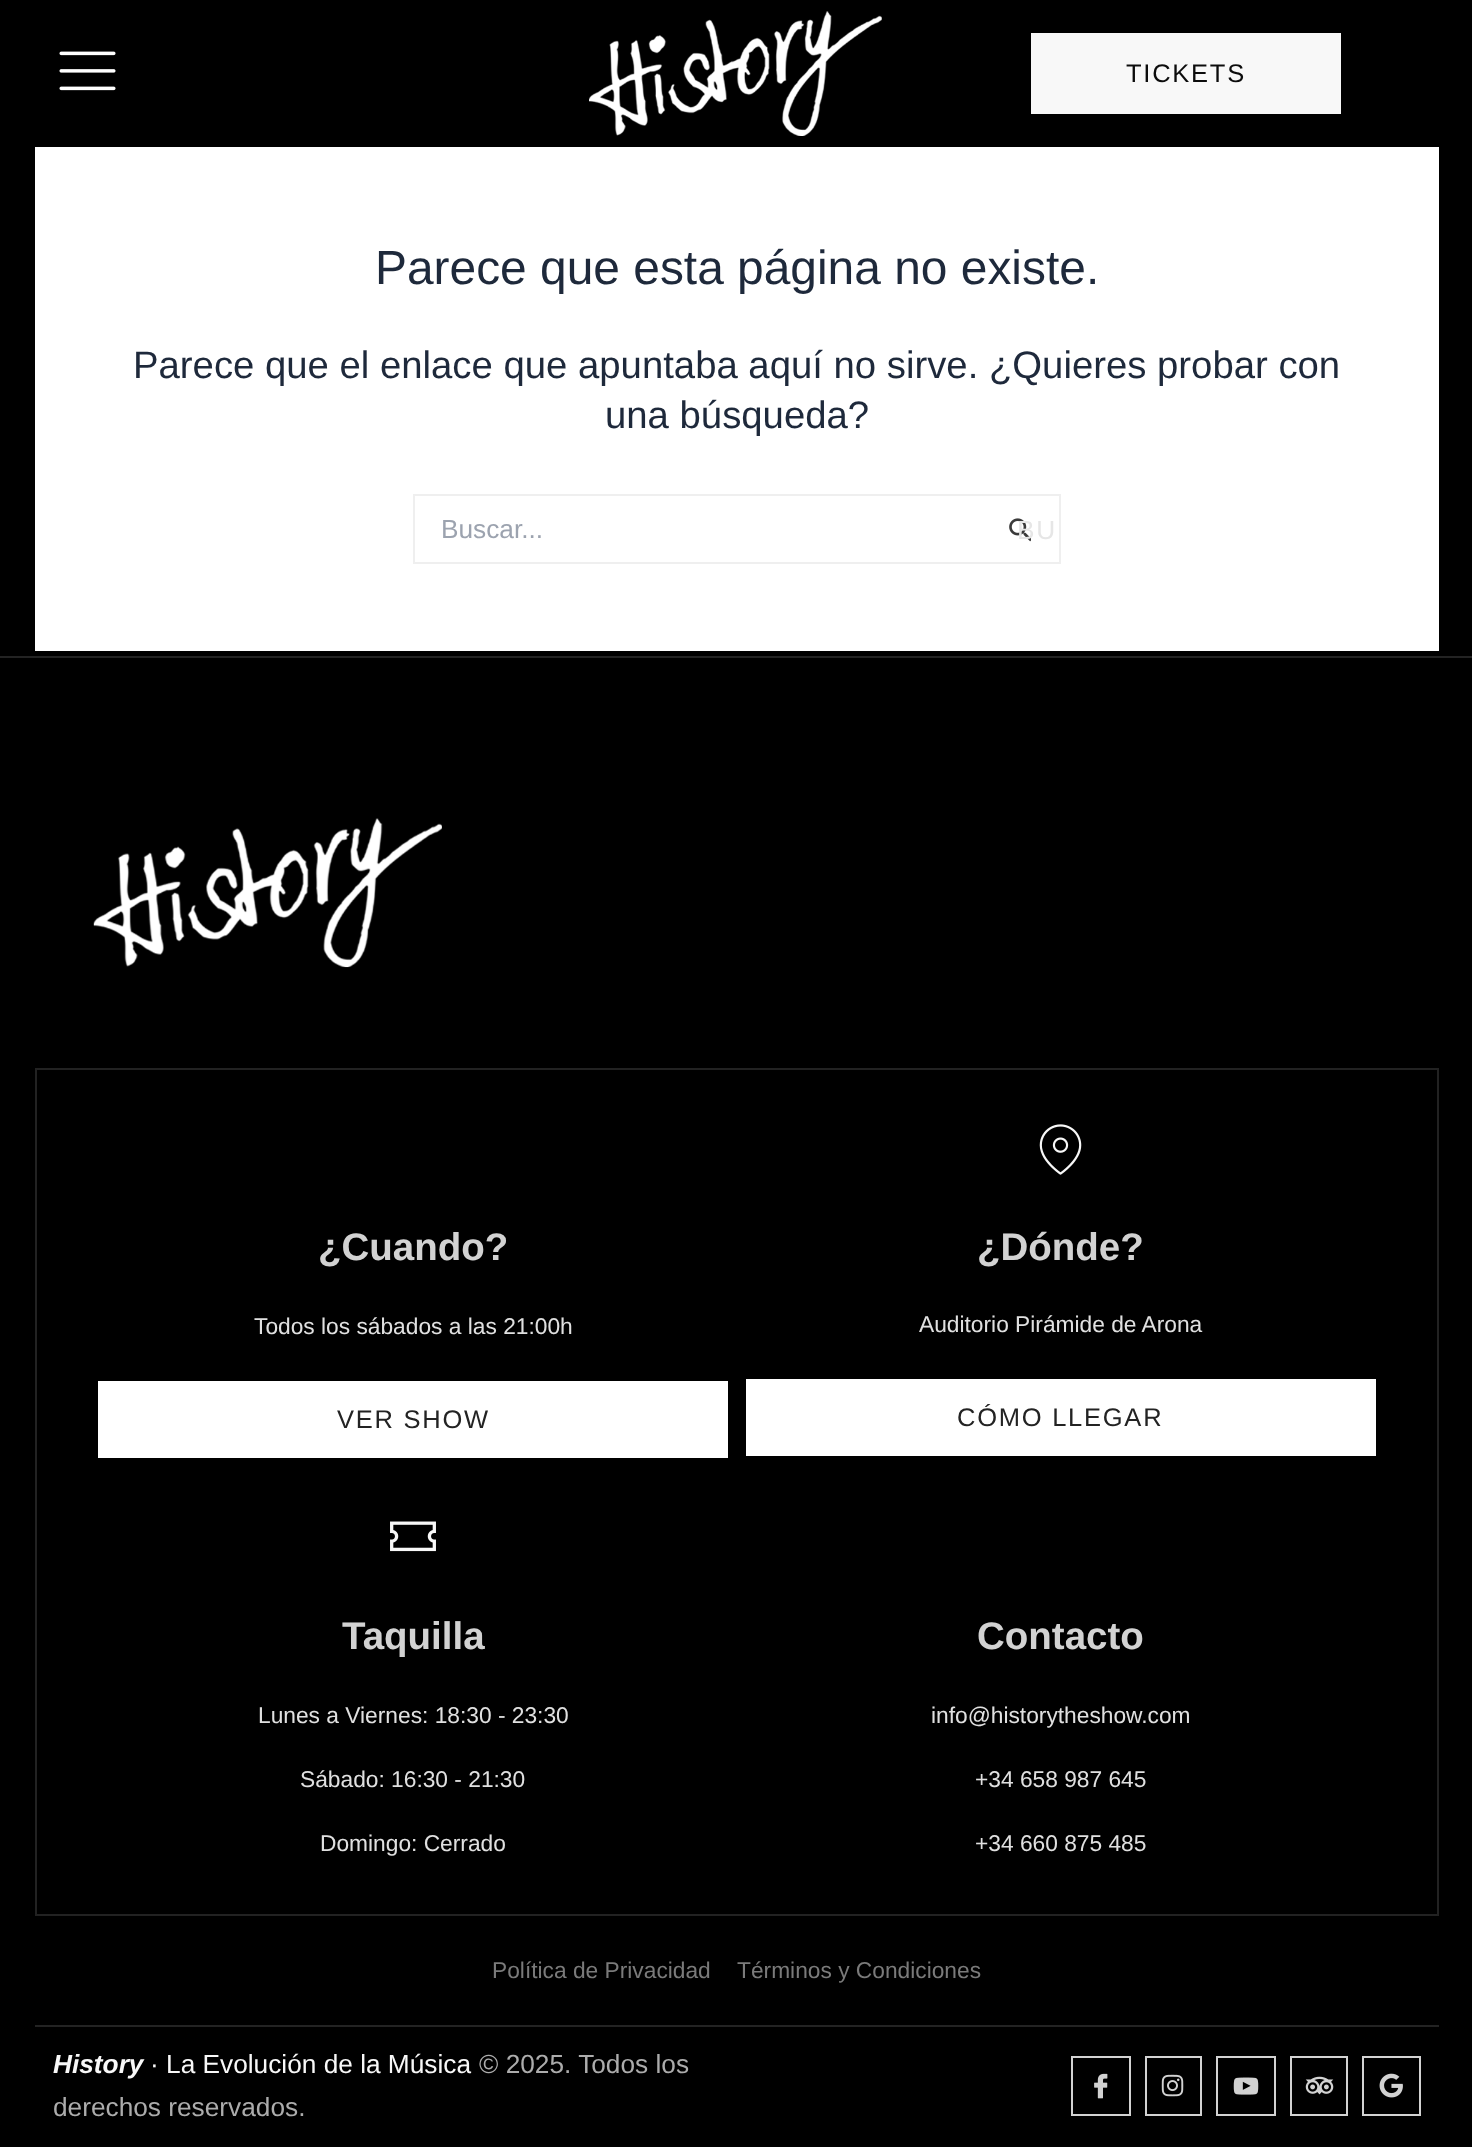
(async () => {
  const canvas = document.querySelector("canvas");
  canvas.width = 1472;
  canvas.height = 2147;
  const ctx = canvas.getContext("2d");
  ctx.miterLimit = 4;
  ctx.fontKerning = "normal";
  async function loadImage(src) {
    const img = new Image();
    img.src = src;
    await img.decode();
    return img;
  }

  ctx.fillStyle = "#000000";
  ctx.fillRect(0, 0, 1472, 2147);
  ctx.drawImage(await loadImage("img/1.png"), 59, 51, 57, 40);
  ctx.drawImage(await loadImage("img/2.png"), 589, 11, 293, 125);
  ctx.fillStyle = "#f8f8f8";
  ctx.fillRect(1031, 33, 310, 81);
  ctx.fillStyle = "#ffffff";
  ctx.fillRect(35, 147, 1404, 504);
  ctx.strokeStyle = "rgba(131, 131, 131, 0.13)";
  ctx.lineWidth = 2;
  ctx.strokeRect(414, 495, 646, 68);
  ctx.drawImage(await loadImage("img/3.png"), 1009, 518, 22, 24);
  ctx.fillStyle = "#232323";
  ctx.fillRect(0, 656, 1472, 2);
  ctx.drawImage(await loadImage("img/4.png"), 93, 818, 349, 150);
  ctx.strokeStyle = "#222222";
  ctx.strokeRect(36, 1069, 1402, 846);
  ctx.fillStyle = "#ffffff";
  ctx.fillRect(98, 1381, 630, 77);
  ctx.drawImage(await loadImage("img/5.png"), 1039, 1124, 43, 51);
  ctx.fillRect(746, 1379, 630, 77);
  ctx.drawImage(await loadImage("img/6.png"), 390, 1521, 46, 31);
  ctx.fillStyle = "#232323";
  ctx.fillRect(35, 2025, 1404, 2);
  ctx.strokeStyle = "#d2d2d2";
  ctx.strokeRect(1072, 2057, 58, 58);
  ctx.drawImage(await loadImage("img/7.png"), 1094, 2073, 14, 26);
  ctx.strokeRect(1146, 2057, 55, 58);
  ctx.drawImage(await loadImage("img/8.png"), 1161, 2074, 23, 23);
  ctx.strokeRect(1217, 2057, 58, 58);
  ctx.drawImage(await loadImage("img/9.png"), 1233, 2077, 26, 18);
  ctx.strokeRect(1291, 2057, 56, 58);
  ctx.drawImage(await loadImage("img/10.png"), 1305, 2076, 29, 19);
  ctx.strokeRect(1363, 2057, 57, 58);
  ctx.drawImage(await loadImage("img/11.png"), 1379, 2073, 24, 25);
  ctx.letterSpacing = "1.75px";
  ctx.font = "25.5px Liberation Sans";
  ctx.fillStyle = "#0c0c0c";
  ctx.fillText("TICKETS", 1126, 82);
  ctx.letterSpacing = "0px";
  ctx.font = "47.9px Liberation Sans";
  ctx.fillStyle = "#1e293b";
  ctx.fillText("Parece que esta página no existe.", 375, 284);
  ctx.font = "38.3px Liberation Sans";
  ctx.fillText("Parece que el enlace que apuntaba aquí no sirve. ¿Quieres probar con", 133, 378);
  ctx.fillText("una búsqueda?", 605, 428);
  ctx.font = "26.25px Liberation Sans";
  ctx.fillStyle = "#9ca3af";
  ctx.fillText("Buscar...", 441, 538);
  ctx.letterSpacing = "1.75px";
  ctx.fillStyle = "#e6e6e6";
  ctx.fillText("BU", 1017, 539);
  ctx.letterSpacing = "0px";
  ctx.font = "bold 38.5px Liberation Sans";
  ctx.fillStyle = "#d2d2d2";
  ctx.fillText("¿Cuando?", 318, 1260);
  ctx.font = "22.75px Liberation Sans";
  ctx.fillStyle = "#e0e0e0";
  ctx.fillText("Todos los sábados a las 21:00h", 254, 1334);
  ctx.letterSpacing = "1.75px";
  ctx.font = "25.5px Liberation Sans";
  ctx.fillStyle = "#232323";
  ctx.fillText("VER SHOW", 337, 1428);
  ctx.letterSpacing = "0px";
  ctx.font = "bold 38.5px Liberation Sans";
  ctx.fillStyle = "#d2d2d2";
  ctx.fillText("¿Dónde?", 977, 1260);
  ctx.font = "22.75px Liberation Sans";
  ctx.fillStyle = "#e0e0e0";
  ctx.fillText("Auditorio Pirámide de Arona", 919, 1332);
  ctx.letterSpacing = "1.75px";
  ctx.font = "25.5px Liberation Sans";
  ctx.fillStyle = "#232323";
  ctx.fillText("CÓMO LLEGAR", 957, 1426);
  ctx.letterSpacing = "0px";
  ctx.font = "bold 38.5px Liberation Sans";
  ctx.fillStyle = "#d2d2d2";
  ctx.fillText("Taquilla", 342, 1649);
  ctx.font = "22.75px Liberation Sans";
  ctx.fillStyle = "#e0e0e0";
  for (const [text, x, y] of [
    ["Lunes a Viernes: 18:30 - 23:30", 258, 1723],
    ["Sábado: 16:30 - 21:30", 300, 1787],
    ["Domingo: Cerrado", 320, 1851],
  ]) {
    ctx.fillText(text, x, y);
  }
  ctx.font = "bold 38.5px Liberation Sans";
  ctx.fillStyle = "#d2d2d2";
  ctx.fillText("Contacto", 977, 1649);
  ctx.font = "22.75px Liberation Sans";
  ctx.fillStyle = "#e0e0e0";
  for (const [text, x, y] of [
    ["info@historytheshow.com", 931, 1723],
    ["+34 658 987 645", 975, 1787],
    ["+34 660 875 485", 975, 1851],
  ]) {
    ctx.fillText(text, x, y);
  }
  ctx.fillStyle = "#7a7a7a";
  ctx.fillText("Política de Privacidad", 492, 1978);
  ctx.fillText("Términos y Condiciones", 737, 1978);
  ctx.font = "italic bold 26.25px Liberation Sans";
  ctx.fillStyle = "#f8f8f8";
  ctx.fillText("History", 53, 2073);
  ctx.font = "26.25px Liberation Sans";
  ctx.fillText("· La Evolución de la Música", 150, 2073);
  ctx.fillStyle = "#acacac";
  ctx.fillText("© 2025. Todos los", 479, 2073);
  ctx.fillText("derechos reservados.", 53, 2116);
})();
